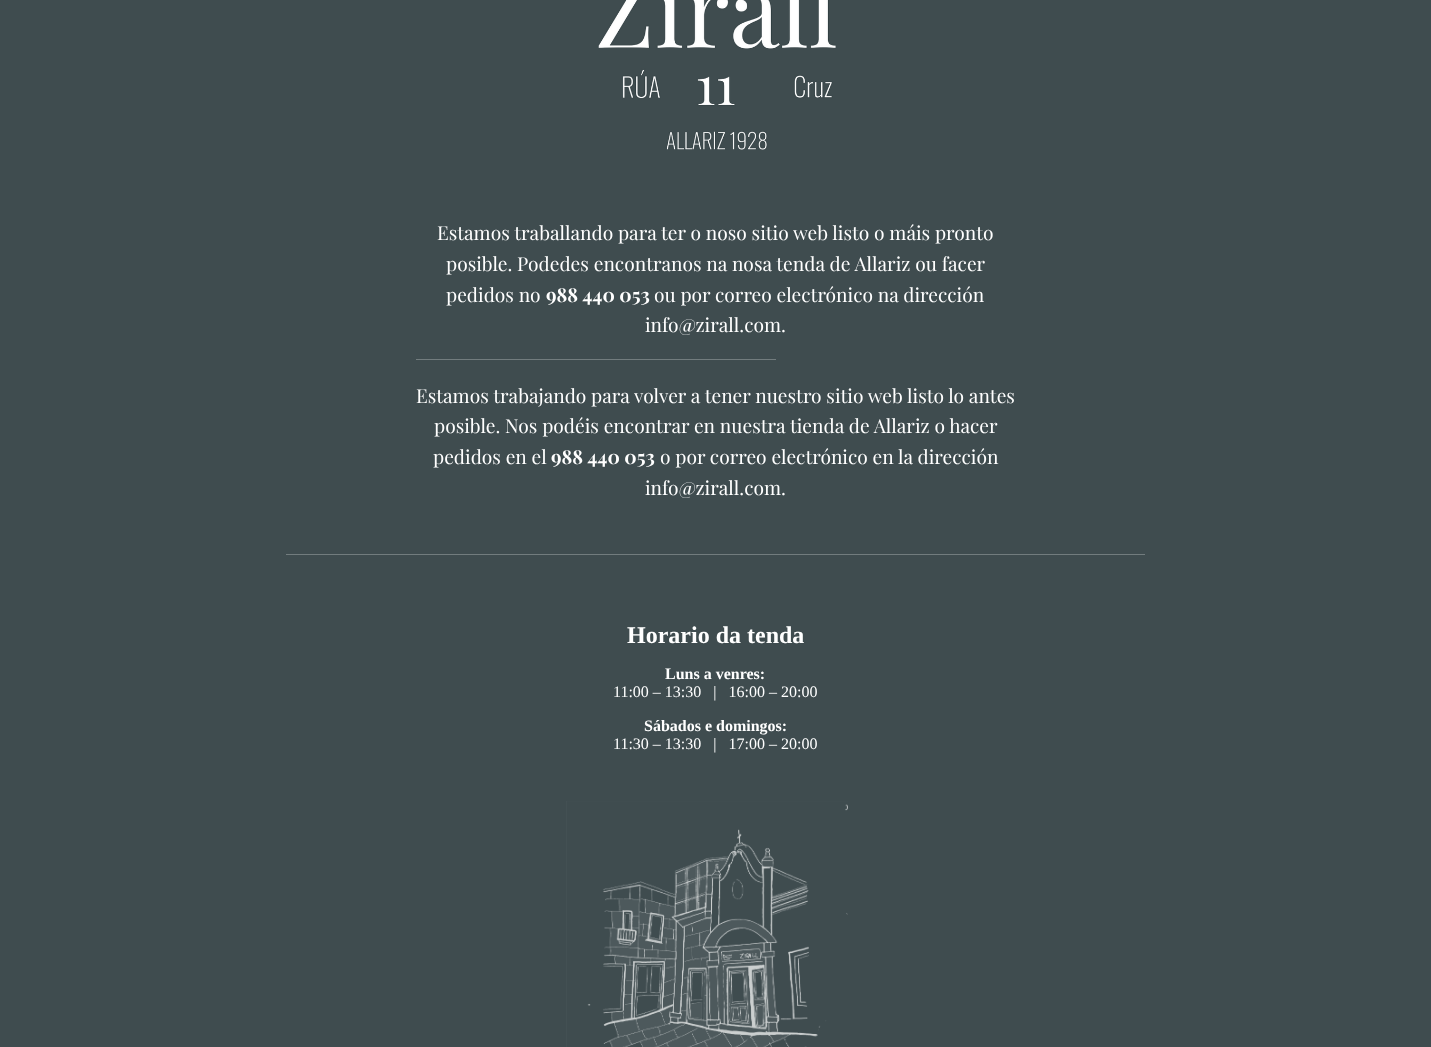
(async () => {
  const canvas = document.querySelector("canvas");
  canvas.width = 1431;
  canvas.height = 1047;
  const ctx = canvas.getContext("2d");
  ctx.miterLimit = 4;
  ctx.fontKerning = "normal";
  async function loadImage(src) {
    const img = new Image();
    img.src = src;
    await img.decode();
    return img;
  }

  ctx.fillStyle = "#3f4c4f";
  ctx.fillRect(0, 0, 1431, 1047);
  ctx.drawImage(await loadImage("img/1.png"), 598, 0, 238, 150);
  ctx.fillStyle = "#727c7e";
  ctx.fillRect(416, 359, 360, 1);
  ctx.fillRect(286, 554, 859, 1);
  ctx.drawImage(await loadImage("img/2.png"), 566, 801, 282, 246);
  ctx.font = "19.2px Playfair Display";
  ctx.fillStyle = "#ffffff";
  for (const [text, x, y] of [
    ["Estamos traballando para ter o noso sitio web listo o máis pronto", 437, 240],
    ["posible. Podedes encontranos na nosa tenda de Allariz ou facer", 446, 271],
    ["pedidos no", 446, 302],
  ]) {
    ctx.fillText(text, x, y);
  }
  ctx.font = "bold 19.2px Playfair Display";
  ctx.fillText("988 440 053", 546, 302);
  ctx.font = "19.2px Playfair Display";
  for (const [text, x, y] of [
    ["ou por correo electrónico na dirección", 654, 302],
    ["info@zirall.com.", 645, 332],
    ["Estamos trabajando para volver a tener nuestro sitio web listo lo antes", 416, 403],
    ["posible. Nos podéis encontrar en nuestra tienda de Allariz o hacer", 434, 433],
    ["pedidos en el", 433, 464],
  ]) {
    ctx.fillText(text, x, y);
  }
  ctx.font = "bold 19.2px Playfair Display";
  ctx.fillText("988 440 053", 551, 464);
  ctx.font = "19.2px Playfair Display";
  ctx.fillText("o por correo electrónico en la dirección", 660, 464);
  ctx.fillText("info@zirall.com.", 645, 495);
  ctx.font = "bold 24px Liberation Serif";
  ctx.fillText("Horario da tenda", 627, 643);
  ctx.font = "bold 16px Liberation Serif";
  ctx.fillText("Luns a venres:", 665, 679);
  ctx.font = "16px Liberation Serif";
  ctx.fillText("11:00 – 13:30   |   16:00 – 20:00", 613, 697);
  ctx.font = "bold 16px Liberation Serif";
  ctx.fillText("Sábados e domingos:", 644, 731);
  ctx.font = "16px Liberation Serif";
  ctx.fillText("11:30 – 13:30   |   17:00 – 20:00", 613, 749);
})();
